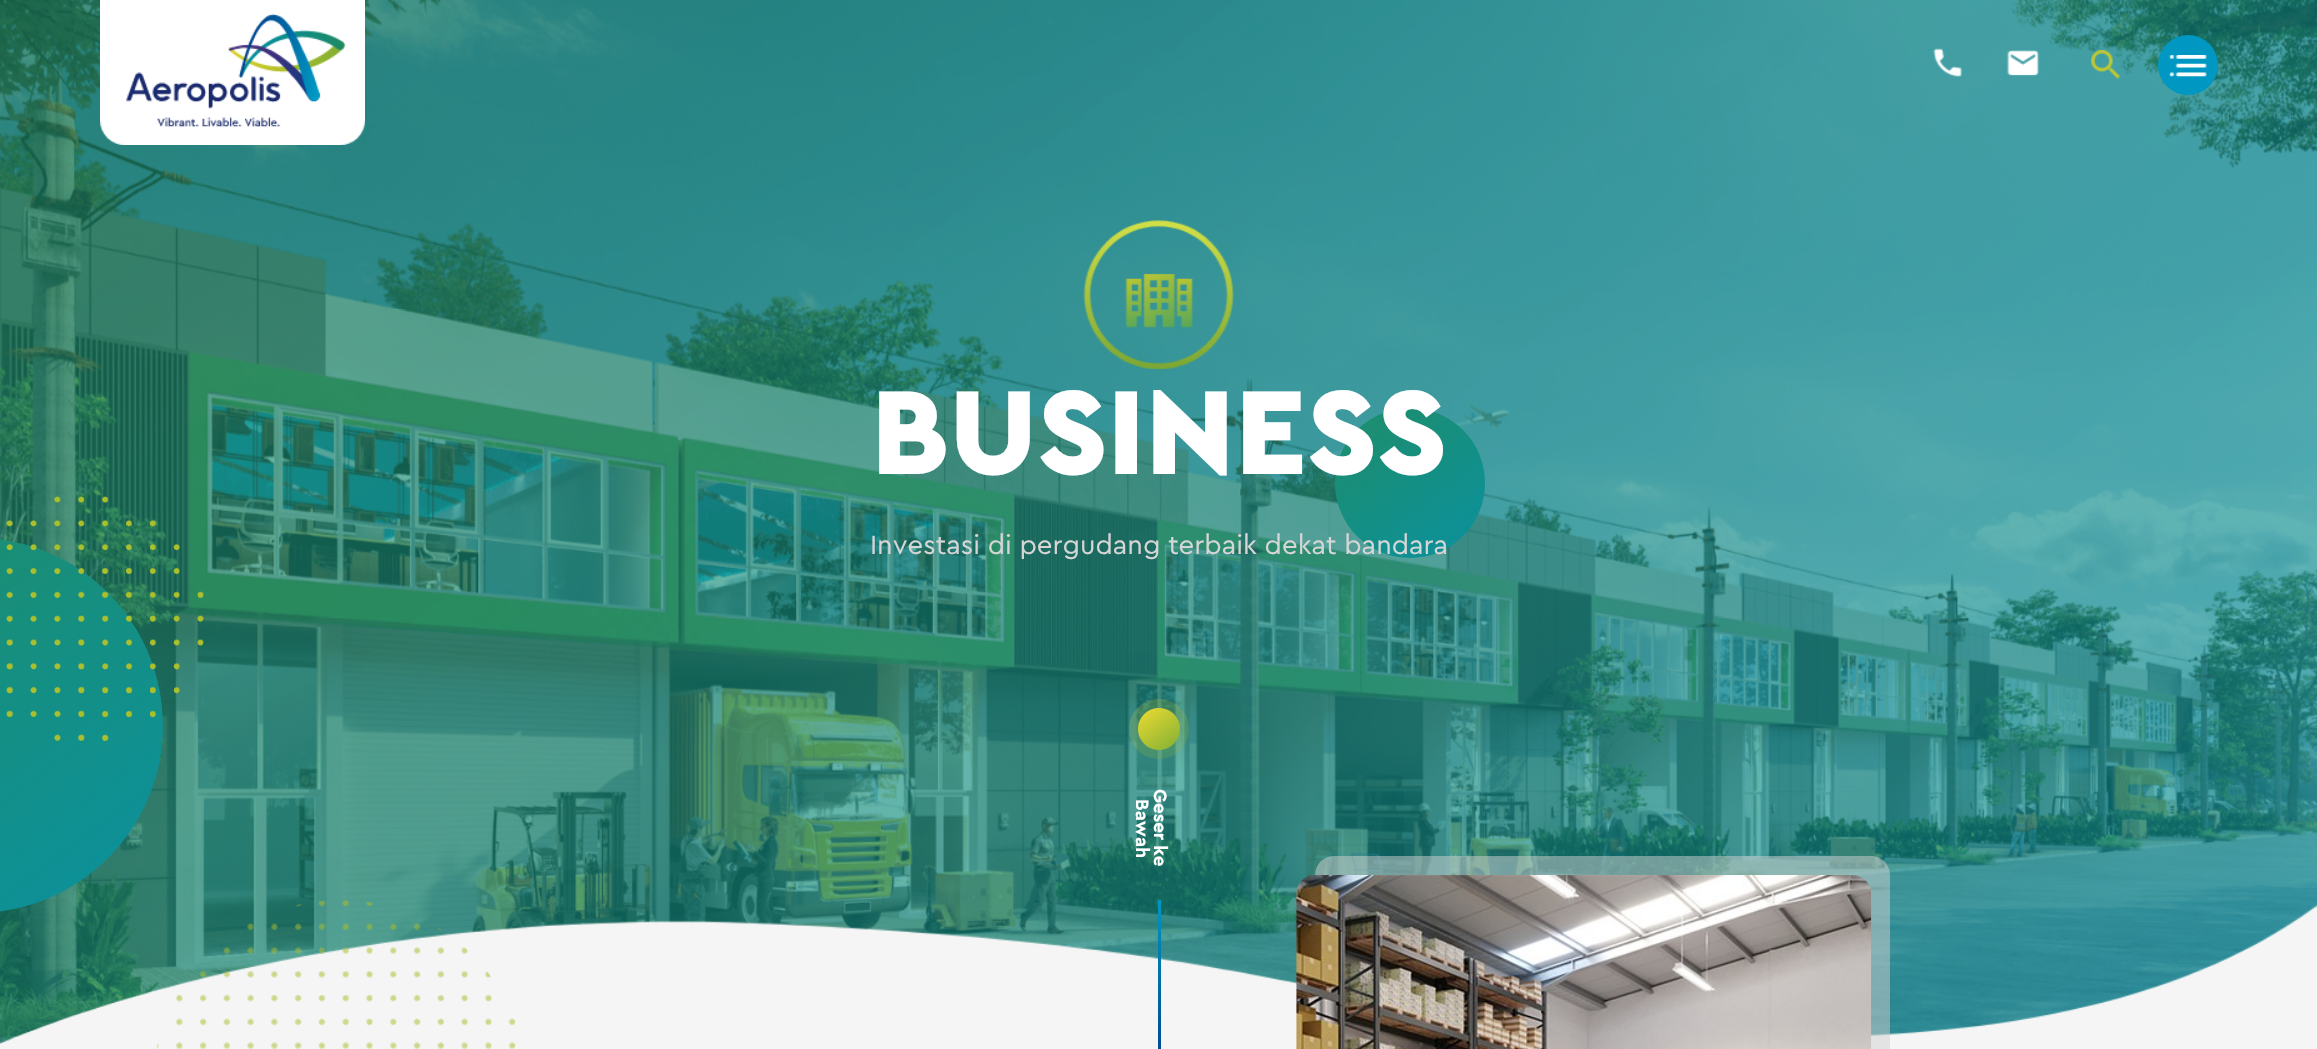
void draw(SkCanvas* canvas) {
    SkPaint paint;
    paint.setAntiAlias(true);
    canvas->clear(0xFFFFFFFF);
    canvas->drawImageRect(SkImages::DeferredFromEncodedData(SkData::MakeFromFileName("img6.png")), SkRect::MakeXYWH(0, 0, 2317, 1045), SkSamplingOptions());
    canvas->drawImageRect(SkImages::DeferredFromEncodedData(SkData::MakeFromFileName("img1.png")), SkRect::MakeXYWH(100, 0, 265, 145), SkSamplingOptions());
    canvas->drawImageRect(SkImages::DeferredFromEncodedData(SkData::MakeFromFileName("img2.png")), SkRect::MakeXYWH(1933, 48, 29, 29), SkSamplingOptions());
    canvas->drawImageRect(SkImages::DeferredFromEncodedData(SkData::MakeFromFileName("img3.png")), SkRect::MakeXYWH(2006, 50, 34, 26), SkSamplingOptions());
    canvas->drawImageRect(SkImages::DeferredFromEncodedData(SkData::MakeFromFileName("img4.png")), SkRect::MakeXYWH(2091, 50, 29, 29), SkSamplingOptions());
    paint.setColor(0xFF0097C2);
    canvas->drawCircle(2188, 65, 30, paint);
    canvas->drawImageRect(SkImages::DeferredFromEncodedData(SkData::MakeFromFileName("img5.png")), SkRect::MakeXYWH(2169, 55, 38, 22), SkSamplingOptions());
    canvas->drawImageRect(SkImages::DeferredFromEncodedData(SkData::MakeFromFileName("img7.png")), SkRect::MakeXYWH(1083, 220, 151, 150), SkSamplingOptions());
    {
        const SkColor colors[] = {0xFF0A919E, 0xFF1F8D69};
        const float stops[] = {0, 0.99f};
        const SkPoint ends[] = {{1473, 566}, {1347, 399}};
        paint.setShader(SkGradientShader::MakeLinear(ends, colors, stops, 2, SkTileMode::kClamp));
        paint.setAlpha(255);
    }
    canvas->drawCircle(1410, 483, 75, paint);
    SkFont font1(fontMgr->matchFamilyStyle("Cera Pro", SkFontStyle(900, SkFontStyle::kNormal_Width, SkFontStyle::kUpright_Slant)), 125);
    font1.setSubpixel(true);
    paint.setShader(nullptr);
    paint.setColor(0xFFFFFFFF);
    canvas->drawString("BUSINESS", 871, 474, font1, paint);
    SkFont font2(fontMgr->matchFamilyStyle("Cera Pro", SkFontStyle::Normal()), 27.5f);
    font2.setSubpixel(true);
    paint.setColor(0xFFD6D6D6);
    canvas->drawString("Investasi di pergudang terbaik dekat bandara", 870, 554, font2, paint);
    canvas->drawImageRect(SkImages::DeferredFromEncodedData(SkData::MakeFromFileName("img8.png")), SkRect::MakeXYWH(0, 904, 2317, 145), SkSamplingOptions());
    {
        const SkColor colors[] = {0xFF0A919E, 0xFF1F8D69};
        const float stops[] = {0, 0.99f};
        const SkPoint ends[] = {{133, 935}, {-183, 515}};
        paint.setShader(SkGradientShader::MakeLinear(ends, colors, stops, 2, SkTileMode::kClamp));
        paint.setAlpha(255);
    }
    canvas->drawPath(SkPathBuilder().moveTo(0, 538).lineTo(-24.5f, 538).cubicTo(79, 538, 163, 622, 163, 725.5f).cubicTo(163, 829, 79, 913, -24.5f, 913).lineTo(0, 913).close().detach(), paint);
    canvas->drawImageRect(SkImages::DeferredFromEncodedData(SkData::MakeFromFileName("img9.png")), SkRect::MakeXYWH(6, 496, 198, 245), SkSamplingOptions());
    SkFont font3(fontMgr->matchFamilyStyle("Cera Pro", SkFontStyle::Bold()), 18.75f);
    font3.setSubpixel(true);
    paint.setShader(nullptr);
    paint.setColor(0xFFFFFFFF);
    canvas->save();
    canvas->rotate(90, 1136, 799);
    canvas->drawString("Bawah", 1136, 799, font3, paint);
    canvas->restore();
    canvas->save();
    canvas->rotate(90, 1154, 789);
    canvas->drawString("Geser ke", 1154, 789, font3, paint);
    canvas->restore();
    {
        const SkColor colors[] = {0xFF004B93, 0xFF0097C1};
        const float stops[] = {0, 0.99f};
        const SkPoint ends[] = {{1195, 1023}, {1122, 927}};
        paint.setShader(SkGradientShader::MakeLinear(ends, colors, stops, 2, SkTileMode::kClamp));
        paint.setAlpha(255);
    }
    canvas->drawRect(SkRect::MakeXYWH(1158, 900, 3, 149), paint);
    canvas->drawImageRect(SkImages::DeferredFromEncodedData(SkData::MakeFromFileName("img10.png")), SkRect::MakeXYWH(156, 900, 360, 149), SkSamplingOptions());
    paint.setShader(nullptr);
    paint.setColor(0x80D1D1D1);
    canvas->drawRoundRect(SkRect::MakeXYWH(1315, 856, 575, 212), 19, 19, paint);
    canvas->drawImageRect(SkImages::DeferredFromEncodedData(SkData::MakeFromFileName("img11.png")), SkRect::MakeXYWH(1296, 875, 576, 174), SkSamplingOptions());
}
